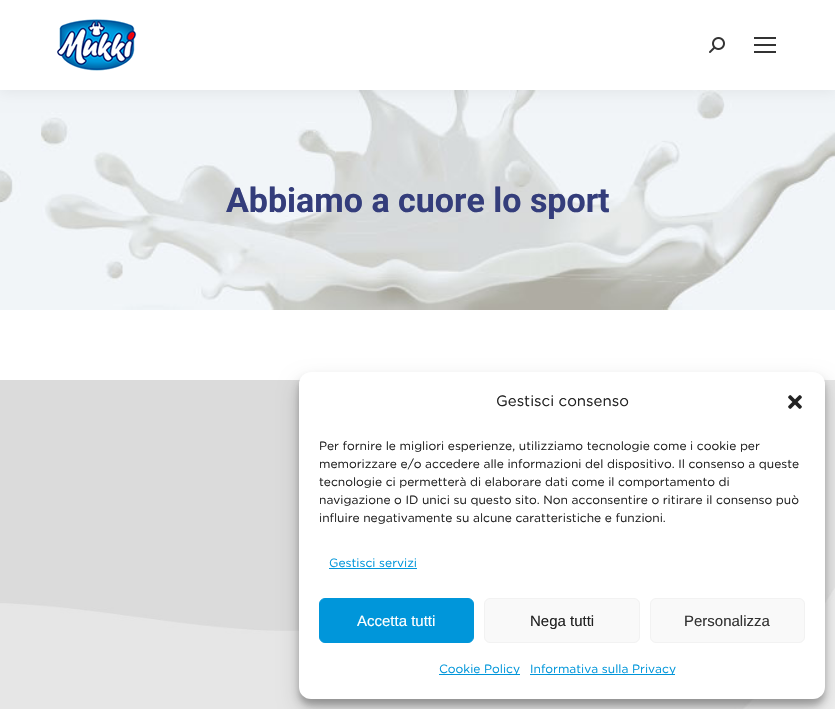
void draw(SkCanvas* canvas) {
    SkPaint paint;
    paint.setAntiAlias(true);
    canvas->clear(0xFFFFFFFF);
    canvas->drawImageRect(SkImages::DeferredFromEncodedData(SkData::MakeFromFileName("img3.png")), SkRect::MakeXYWH(0, 90, 835, 220), SkSamplingOptions());
    paint.setColor(0x12000000);
    paint.setMaskFilter(SkMaskFilter::MakeBlur(kNormal_SkBlurStyle, 7.5f));
    canvas->drawRect(SkRect::MakeXYWH(-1, -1, 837, 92), paint);
    paint.setMaskFilter(nullptr);
    paint.setColor(0xFFFFFFFF);
    canvas->drawRect(SkRect::MakeXYWH(0, 0, 835, 90), paint);
    canvas->drawImageRect(SkImages::DeferredFromEncodedData(SkData::MakeFromFileName("img1.png")), SkRect::MakeXYWH(57, 19, 80, 52), SkSamplingOptions());
    canvas->drawImageRect(SkImages::DeferredFromEncodedData(SkData::MakeFromFileName("img2.png")), SkRect::MakeXYWH(709, 37, 16, 16), SkSamplingOptions());
    paint.setColor(0xFF333333);
    canvas->drawRect(SkRect::MakeXYWH(754, 37, 22, 2), paint);
    canvas->drawRect(SkRect::MakeXYWH(754, 44, 22, 2), paint);
    canvas->drawRect(SkRect::MakeXYWH(754, 51, 22, 2), paint);
    SkFont font1(fontMgr->matchFamilyStyle("Roboto", SkFontStyle::Bold()), 34);
    font1.setSubpixel(true);
    paint.setColor(0xFF343D7B);
    canvas->drawString("Abbiamo a cuore lo sport", 226, 212, font1, paint);
    canvas->drawImageRect(SkImages::DeferredFromEncodedData(SkData::MakeFromFileName("img4.png")), SkRect::MakeXYWH(0, 380, 835, 329), SkSamplingOptions());
    paint.setColor(0x3B000000);
    paint.setMaskFilter(SkMaskFilter::MakeBlur(kNormal_SkBlurStyle, 3));
    canvas->drawRoundRect(SkRect::MakeXYWH(299, 378, 526, 327), 12, 12, paint);
    paint.setMaskFilter(nullptr);
    paint.setColor(0x30000000);
    paint.setMaskFilter(SkMaskFilter::MakeBlur(kNormal_SkBlurStyle, 10));
    canvas->drawRoundRect(SkRect::MakeXYWH(299, 382, 526, 327), 12, 12, paint);
    paint.setMaskFilter(nullptr);
    paint.setColor(0xFFFFFFFF);
    canvas->drawRoundRect(SkRect::MakeXYWH(299, 372, 526, 327), 12, 12, paint);
    SkFont font2(fontMgr->matchFamilyStyle("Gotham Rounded", SkFontStyle::Normal()), 15);
    font2.setSubpixel(true);
    paint.setColor(0xFF222222);
    canvas->drawString("Gestisci consenso", 496, 406, font2, paint);
    canvas->drawImageRect(SkImages::DeferredFromEncodedData(SkData::MakeFromFileName("img5.png")), SkRect::MakeXYWH(788, 395, 14, 14), SkSamplingOptions());
    SkFont font3(fontMgr->matchFamilyStyle("Gotham Rounded", SkFontStyle::Normal()), 12);
    font3.setSubpixel(true);
    canvas->drawString("Per fornire le migliori esperienze, utilizziamo tecnologie come i cookie per", 319, 450, font3, paint);
    canvas->drawString("memorizzare e/o accedere alle informazioni del dispositivo. Il consenso a queste", 319, 468, font3, paint);
    canvas->drawString("tecnologie ci permetterà di elaborare dati come il comportamento di", 319, 486, font3, paint);
    canvas->drawString("navigazione o ID unici su questo sito. Non acconsentire o ritirare il consenso può", 319, 504, font3, paint);
    canvas->drawString("influire negativamente su alcune caratteristiche e funzioni.", 319, 522, font3, paint);
    paint.setColor(0xFF0096DA);
    canvas->drawString("Gestisci servizi", 329, 567, font3, paint);
    canvas->drawRect(SkRect::MakeXYWH(329, 568, 88, 1), paint);
    canvas->drawRoundRect(SkRect::MakeXYWH(319.5f, 598.5f, 154, 44), 5.5f, 5.5f, paint);
    paint.setStyle(SkPaint::kStroke_Style);
    paint.setStrokeWidth(1);
    canvas->drawRoundRect(SkRect::MakeXYWH(319.5f, 598.5f, 154, 44), 5.5f, 5.5f, paint);
    SkFont font4(fontMgr->matchFamilyStyle("Liberation Sans", SkFontStyle::Normal()), 15);
    font4.setSubpixel(true);
    paint.setStyle(SkPaint::kFill_Style);
    paint.setColor(0xFFFFFFFF);
    canvas->drawString("Accetta tutti", 357, 626, font4, paint);
    paint.setColor(0xFFF9F9F9);
    canvas->drawRoundRect(SkRect::MakeXYWH(484.5f, 598.5f, 155, 44), 5.5f, 5.5f, paint);
    paint.setStyle(SkPaint::kStroke_Style);
    paint.setColor(0xFFF2F2F2);
    canvas->drawRoundRect(SkRect::MakeXYWH(484.5f, 598.5f, 155, 44), 5.5f, 5.5f, paint);
    paint.setStyle(SkPaint::kFill_Style);
    paint.setColor(0xFF222222);
    canvas->drawString("Nega tutti", 530, 626, font4, paint);
    paint.setColor(0xFFF9F9F9);
    canvas->drawRoundRect(SkRect::MakeXYWH(650.5f, 598.5f, 154, 44), 5.5f, 5.5f, paint);
    paint.setStyle(SkPaint::kStroke_Style);
    paint.setColor(0xFFF2F2F2);
    canvas->drawRoundRect(SkRect::MakeXYWH(650.5f, 598.5f, 154, 44), 5.5f, 5.5f, paint);
    paint.setStyle(SkPaint::kFill_Style);
    paint.setColor(0xFF333333);
    canvas->drawString("Personalizza", 684, 626, font4, paint);
    paint.setColor(0xFF0096DA);
    canvas->drawRect(SkRect::MakeXYWH(439, 674, 81, 1), paint);
    canvas->drawString("Cookie Policy", 439, 673, font3, paint);
    canvas->drawRect(SkRect::MakeXYWH(530, 674, 145, 1), paint);
    canvas->drawString("Informativa sulla Privacy", 530, 673, font3, paint);
}
